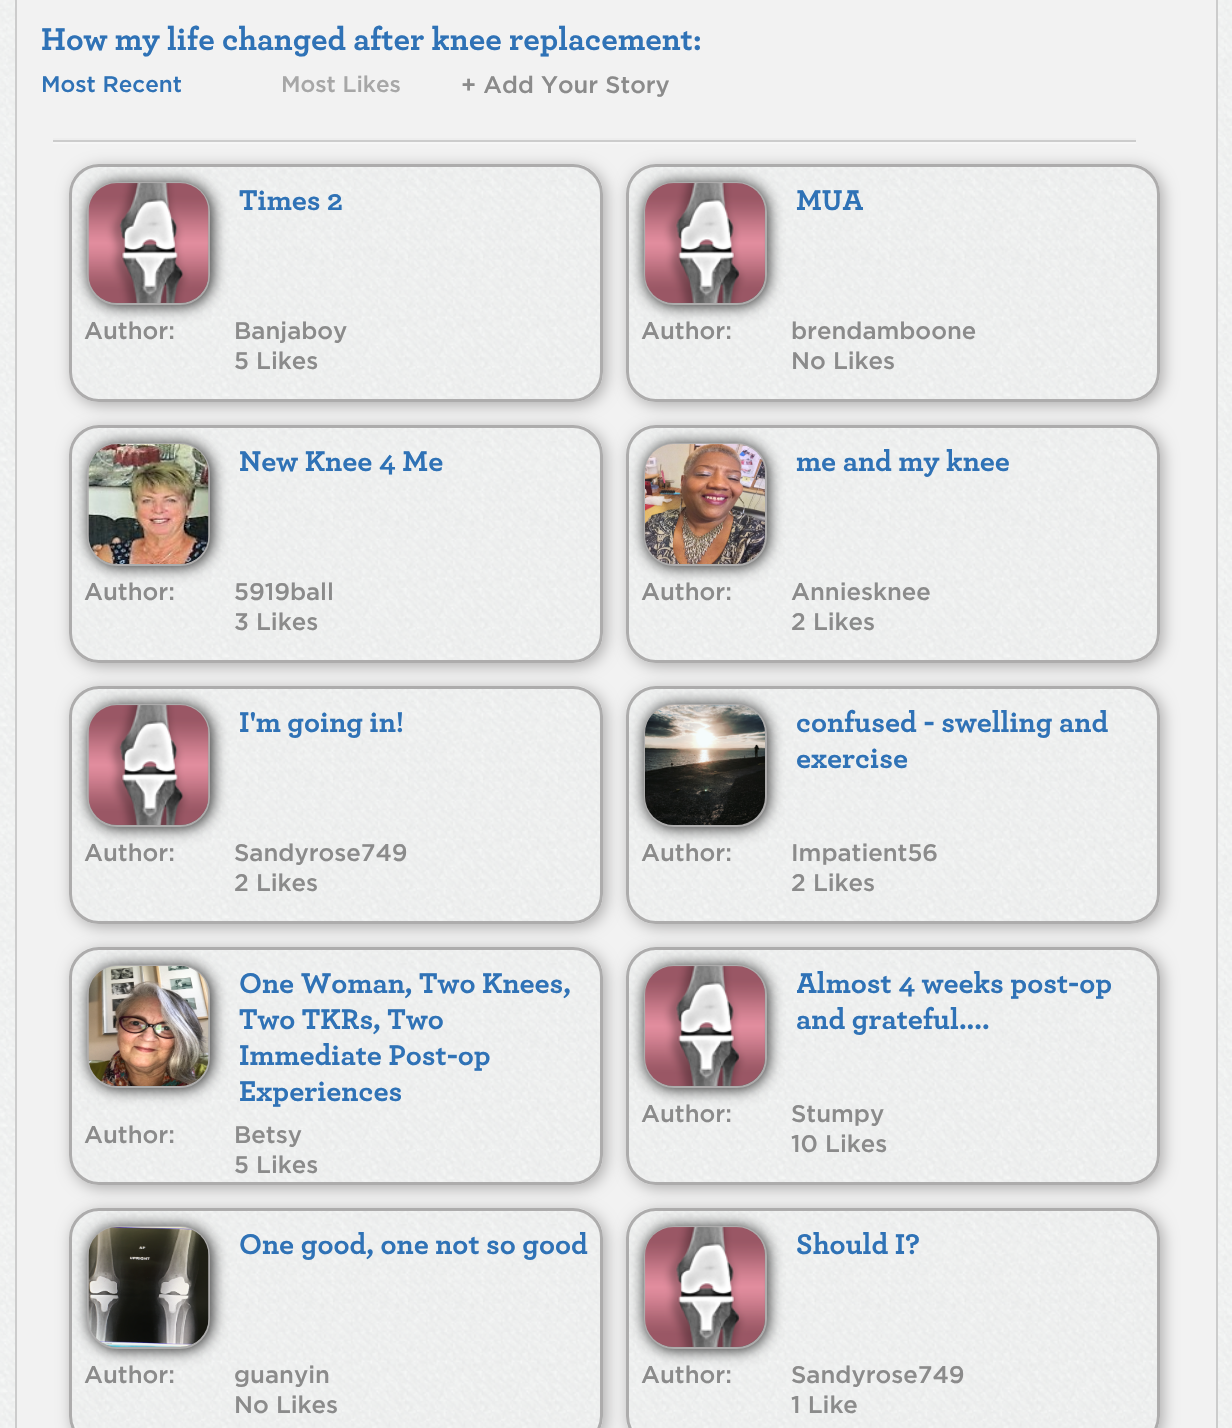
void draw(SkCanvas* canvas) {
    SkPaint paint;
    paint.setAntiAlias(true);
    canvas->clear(0xFFFFFFFF);
    canvas->drawImageRect(SkImages::DeferredFromEncodedData(SkData::MakeFromFileName("img1.png")), SkRect::MakeXYWH(0, 0, 1232, 1428), SkSamplingOptions());
    paint.setColor(0xFFF2F2F2);
    canvas->drawRect(SkRect::MakeXYWH(16, -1, 1201, 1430), paint);
    paint.setStyle(SkPaint::kStroke_Style);
    paint.setStrokeWidth(2);
    paint.setColor(0xFFCCCCCC);
    canvas->drawRect(SkRect::MakeXYWH(16, -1, 1201, 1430), paint);
    SkFont font1(fontMgr->matchFamilyStyle("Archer", SkFontStyle::Bold()), 33);
    font1.setSubpixel(true);
    paint.setStyle(SkPaint::kFill_Style);
    paint.setColor(0xFF2F72B6);
    canvas->drawString("How my life changed after knee replacement:", 41, 50, font1, paint);
    SkFont font2(fontMgr->matchFamilyStyle("Gotham", SkFontStyle(500, SkFontStyle::kNormal_Width, SkFontStyle::kUpright_Slant)), 22.5f);
    font2.setSubpixel(true);
    canvas->drawString("Most Recent", 41, 92, font2, paint);
    paint.setColor(0xFFA7A7A7);
    canvas->drawString("Most Likes", 281, 92, font2, paint);
    SkFont font3(fontMgr->matchFamilyStyle("Gotham", SkFontStyle(500, SkFontStyle::kNormal_Width, SkFontStyle::kUpright_Slant)), 23.75f);
    font3.setSubpixel(true);
    paint.setColor(0xFF8B8B8B);
    canvas->drawString("+ Add Your Story", 461, 93, font3, paint);
    canvas->save();
    canvas->clipPath(SkPathBuilder(SkPathFillType::kEvenOdd).moveTo(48, 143).lineTo(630, 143).lineTo(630, 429).lineTo(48, 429).close().moveTo(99, 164).lineTo(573, 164).cubicTo(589.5f, 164, 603, 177.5f, 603, 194).lineTo(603, 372).cubicTo(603, 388.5f, 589.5f, 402, 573, 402).lineTo(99, 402).cubicTo(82.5f, 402, 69, 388.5f, 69, 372).lineTo(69, 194).cubicTo(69, 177.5f, 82.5f, 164, 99, 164).close().detach(), true);
    paint.setColor(0xFFADACAC);
    paint.setMaskFilter(SkMaskFilter::MakeBlur(kNormal_SkBlurStyle, 7.5f));
    canvas->drawRoundRect(SkRect::MakeXYWH(72, 167, 534, 238), 30, 30, paint);
    paint.setMaskFilter(nullptr);
    canvas->restore();
    canvas->save();
    canvas->clipPath(SkPathBuilder(SkPathFillType::kEvenOdd).moveTo(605, 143).lineTo(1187, 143).lineTo(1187, 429).lineTo(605, 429).close().moveTo(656, 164).lineTo(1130, 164).cubicTo(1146.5f, 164, 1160, 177.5f, 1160, 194).lineTo(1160, 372).cubicTo(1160, 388.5f, 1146.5f, 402, 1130, 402).lineTo(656, 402).cubicTo(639.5f, 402, 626, 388.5f, 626, 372).lineTo(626, 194).cubicTo(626, 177.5f, 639.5f, 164, 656, 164).close().detach(), true);
    paint.setMaskFilter(SkMaskFilter::MakeBlur(kNormal_SkBlurStyle, 7.5f));
    canvas->drawRoundRect(SkRect::MakeXYWH(629, 167, 534, 238), 30, 30, paint);
    paint.setMaskFilter(nullptr);
    canvas->restore();
    paint.setColor(0xFFF6F6F6);
    canvas->drawRect(SkRect::MakeXYWH(53, 142, 1083, 2), paint);
    paint.setColor(0xFFEEEEEE);
    canvas->drawRect(SkRect::MakeXYWH(53, 138, 1083, 2), paint);
    paint.setColor(0xFFCCCCCC);
    canvas->drawRect(SkRect::MakeXYWH(53, 140, 1083, 2), paint);
    canvas->drawImageRect(SkImages::DeferredFromEncodedData(SkData::MakeFromFileName("img2.png")), SkRect::MakeXYWH(69, 164, 534, 238), SkSamplingOptions());
    paint.setStyle(SkPaint::kStroke_Style);
    paint.setStrokeWidth(3);
    paint.setColor(0xFFADACAC);
    canvas->drawRoundRect(SkRect::MakeXYWH(70.5f, 165.5f, 531, 235), 28.5f, 28.5f, paint);
    paint.setStyle(SkPaint::kFill_Style);
    paint.setColor(0xFF272727);
    paint.setMaskFilter(SkMaskFilter::MakeBlur(kNormal_SkBlurStyle, 7.5f));
    canvas->drawRoundRect(SkRect::MakeXYWH(89, 183, 123, 123), 30, 30, paint);
    paint.setMaskFilter(nullptr);
    paint.setStyle(SkPaint::kStroke_Style);
    paint.setStrokeWidth(2);
    paint.setColor(0xFFADACAC);
    canvas->drawRoundRect(SkRect::MakeXYWH(88, 183, 121, 121), 29, 29, paint);
    canvas->drawImageRect(SkImages::DeferredFromEncodedData(SkData::MakeFromFileName("img3.png")), SkRect::MakeXYWH(88, 183, 121, 120), SkSamplingOptions());
    SkFont font4(fontMgr->matchFamilyStyle("Archer", SkFontStyle::Bold()), 30);
    font4.setSubpixel(true);
    paint.setStyle(SkPaint::kFill_Style);
    paint.setColor(0xFF2F72B6);
    canvas->drawString("Times 2", 239, 210, font4, paint);
    SkFont font5(fontMgr->matchFamilyStyle("Gotham", SkFontStyle(500, SkFontStyle::kNormal_Width, SkFontStyle::kUpright_Slant)), 24);
    font5.setSubpixel(true);
    paint.setColor(0xFF8B8B8B);
    canvas->drawString("Author:", 84, 339, font5, paint);
    canvas->drawString("Banjaboy", 234, 339, font5, paint);
    canvas->drawString("5 Likes", 234, 369, font5, paint);
    canvas->drawImageRect(SkImages::DeferredFromEncodedData(SkData::MakeFromFileName("img4.png")), SkRect::MakeXYWH(626, 164, 534, 238), SkSamplingOptions());
    paint.setStyle(SkPaint::kStroke_Style);
    paint.setStrokeWidth(3);
    paint.setColor(0xFFADACAC);
    canvas->drawRoundRect(SkRect::MakeXYWH(627.5f, 165.5f, 531, 235), 28.5f, 28.5f, paint);
    paint.setStyle(SkPaint::kFill_Style);
    paint.setColor(0xFF272727);
    paint.setMaskFilter(SkMaskFilter::MakeBlur(kNormal_SkBlurStyle, 7.5f));
    canvas->drawRoundRect(SkRect::MakeXYWH(645, 183, 123, 123), 30, 30, paint);
    paint.setMaskFilter(nullptr);
    paint.setStyle(SkPaint::kStroke_Style);
    paint.setStrokeWidth(2);
    paint.setColor(0xFFADACAC);
    canvas->drawRoundRect(SkRect::MakeXYWH(645, 183, 121, 121), 29, 29, paint);
    canvas->drawImageRect(SkImages::DeferredFromEncodedData(SkData::MakeFromFileName("img5.png")), SkRect::MakeXYWH(645, 183, 120, 120), SkSamplingOptions());
    paint.setStyle(SkPaint::kFill_Style);
    paint.setColor(0xFF2F72B6);
    canvas->drawString("MUA", 796, 210, font4, paint);
    paint.setColor(0xFF8B8B8B);
    canvas->drawString("Author:", 641, 339, font5, paint);
    canvas->drawString("brendamboone", 791, 339, font5, paint);
    canvas->drawString("No Likes", 791, 369, font5, paint);
    canvas->save();
    canvas->clipPath(SkPathBuilder(SkPathFillType::kEvenOdd).moveTo(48, 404).lineTo(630, 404).lineTo(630, 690).lineTo(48, 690).close().moveTo(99, 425).lineTo(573, 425).cubicTo(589.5f, 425, 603, 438.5f, 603, 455).lineTo(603, 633).cubicTo(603, 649.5f, 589.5f, 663, 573, 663).lineTo(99, 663).cubicTo(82.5f, 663, 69, 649.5f, 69, 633).lineTo(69, 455).cubicTo(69, 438.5f, 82.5f, 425, 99, 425).close().detach(), true);
    paint.setColor(0xFFADACAC);
    paint.setMaskFilter(SkMaskFilter::MakeBlur(kNormal_SkBlurStyle, 7.5f));
    canvas->drawRoundRect(SkRect::MakeXYWH(72, 428, 534, 238), 30, 30, paint);
    paint.setMaskFilter(nullptr);
    canvas->restore();
    canvas->drawImageRect(SkImages::DeferredFromEncodedData(SkData::MakeFromFileName("img6.png")), SkRect::MakeXYWH(69, 425, 534, 238), SkSamplingOptions());
    paint.setStyle(SkPaint::kStroke_Style);
    paint.setStrokeWidth(3);
    canvas->drawRoundRect(SkRect::MakeXYWH(70.5f, 426.5f, 531, 235), 28.5f, 28.5f, paint);
    paint.setStyle(SkPaint::kFill_Style);
    paint.setColor(0xFF272727);
    paint.setMaskFilter(SkMaskFilter::MakeBlur(kNormal_SkBlurStyle, 7.5f));
    canvas->drawRoundRect(SkRect::MakeXYWH(89, 444, 123, 123), 30, 30, paint);
    paint.setMaskFilter(nullptr);
    paint.setStyle(SkPaint::kStroke_Style);
    paint.setStrokeWidth(2);
    paint.setColor(0xFFADACAC);
    canvas->drawRoundRect(SkRect::MakeXYWH(88, 444, 121, 121), 29, 29, paint);
    canvas->drawImageRect(SkImages::DeferredFromEncodedData(SkData::MakeFromFileName("img7.png")), SkRect::MakeXYWH(88, 444, 121, 120), SkSamplingOptions());
    paint.setStyle(SkPaint::kFill_Style);
    paint.setColor(0xFF2F72B6);
    canvas->drawString("New Knee 4 Me", 239, 471, font4, paint);
    paint.setColor(0xFF8B8B8B);
    canvas->drawString("Author:", 84, 600, font5, paint);
    canvas->drawString("5919ball", 234, 600, font5, paint);
    canvas->drawString("3 Likes", 234, 630, font5, paint);
    canvas->save();
    canvas->clipPath(SkPathBuilder(SkPathFillType::kEvenOdd).moveTo(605, 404).lineTo(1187, 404).lineTo(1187, 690).lineTo(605, 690).close().moveTo(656, 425).lineTo(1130, 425).cubicTo(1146.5f, 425, 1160, 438.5f, 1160, 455).lineTo(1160, 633).cubicTo(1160, 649.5f, 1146.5f, 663, 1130, 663).lineTo(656, 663).cubicTo(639.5f, 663, 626, 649.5f, 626, 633).lineTo(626, 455).cubicTo(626, 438.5f, 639.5f, 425, 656, 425).close().detach(), true);
    paint.setColor(0xFFADACAC);
    paint.setMaskFilter(SkMaskFilter::MakeBlur(kNormal_SkBlurStyle, 7.5f));
    canvas->drawRoundRect(SkRect::MakeXYWH(629, 428, 534, 238), 30, 30, paint);
    paint.setMaskFilter(nullptr);
    canvas->restore();
    canvas->drawImageRect(SkImages::DeferredFromEncodedData(SkData::MakeFromFileName("img8.png")), SkRect::MakeXYWH(626, 425, 534, 238), SkSamplingOptions());
    paint.setStyle(SkPaint::kStroke_Style);
    paint.setStrokeWidth(3);
    canvas->drawRoundRect(SkRect::MakeXYWH(627.5f, 426.5f, 531, 235), 28.5f, 28.5f, paint);
    paint.setStyle(SkPaint::kFill_Style);
    paint.setColor(0xFF272727);
    paint.setMaskFilter(SkMaskFilter::MakeBlur(kNormal_SkBlurStyle, 7.5f));
    canvas->drawRoundRect(SkRect::MakeXYWH(645, 444, 123, 123), 30, 30, paint);
    paint.setMaskFilter(nullptr);
    paint.setStyle(SkPaint::kStroke_Style);
    paint.setStrokeWidth(2);
    paint.setColor(0xFFADACAC);
    canvas->drawRoundRect(SkRect::MakeXYWH(645, 444, 121, 121), 29, 29, paint);
    canvas->drawImageRect(SkImages::DeferredFromEncodedData(SkData::MakeFromFileName("img9.png")), SkRect::MakeXYWH(645, 444, 120, 120), SkSamplingOptions());
    paint.setStyle(SkPaint::kFill_Style);
    paint.setColor(0xFF2F72B6);
    canvas->drawString("me and my knee", 796, 471, font4, paint);
    paint.setColor(0xFF8B8B8B);
    canvas->drawString("Author:", 641, 600, font5, paint);
    canvas->drawString("Anniesknee", 791, 600, font5, paint);
    canvas->drawString("2 Likes", 791, 630, font5, paint);
    canvas->save();
    canvas->clipPath(SkPathBuilder(SkPathFillType::kEvenOdd).moveTo(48, 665).lineTo(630, 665).lineTo(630, 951).lineTo(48, 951).close().moveTo(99, 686).lineTo(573, 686).cubicTo(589.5f, 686, 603, 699.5f, 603, 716).lineTo(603, 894).cubicTo(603, 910.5f, 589.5f, 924, 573, 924).lineTo(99, 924).cubicTo(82.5f, 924, 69, 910.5f, 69, 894).lineTo(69, 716).cubicTo(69, 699.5f, 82.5f, 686, 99, 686).close().detach(), true);
    paint.setColor(0xFFADACAC);
    paint.setMaskFilter(SkMaskFilter::MakeBlur(kNormal_SkBlurStyle, 7.5f));
    canvas->drawRoundRect(SkRect::MakeXYWH(72, 689, 534, 238), 30, 30, paint);
    paint.setMaskFilter(nullptr);
    canvas->restore();
    canvas->drawImageRect(SkImages::DeferredFromEncodedData(SkData::MakeFromFileName("img6.png")), SkRect::MakeXYWH(69, 686, 534, 238), SkSamplingOptions());
    paint.setStyle(SkPaint::kStroke_Style);
    paint.setStrokeWidth(3);
    canvas->drawRoundRect(SkRect::MakeXYWH(70.5f, 687.5f, 531, 235), 28.5f, 28.5f, paint);
    paint.setStyle(SkPaint::kFill_Style);
    paint.setColor(0xFF272727);
    paint.setMaskFilter(SkMaskFilter::MakeBlur(kNormal_SkBlurStyle, 7.5f));
    canvas->drawRoundRect(SkRect::MakeXYWH(89, 705, 123, 123), 30, 30, paint);
    paint.setMaskFilter(nullptr);
    paint.setStyle(SkPaint::kStroke_Style);
    paint.setStrokeWidth(2);
    paint.setColor(0xFFADACAC);
    canvas->drawRoundRect(SkRect::MakeXYWH(88, 705, 121, 121), 29, 29, paint);
    canvas->drawImageRect(SkImages::DeferredFromEncodedData(SkData::MakeFromFileName("img10.png")), SkRect::MakeXYWH(88, 705, 121, 120), SkSamplingOptions());
    paint.setStyle(SkPaint::kFill_Style);
    paint.setColor(0xFF2F72B6);
    canvas->drawString("I'm going in!", 239, 732, font4, paint);
    paint.setColor(0xFF8B8B8B);
    canvas->drawString("Author:", 84, 861, font5, paint);
    canvas->drawString("Sandyrose749", 234, 861, font5, paint);
    canvas->drawString("2 Likes", 234, 891, font5, paint);
    canvas->save();
    canvas->clipPath(SkPathBuilder(SkPathFillType::kEvenOdd).moveTo(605, 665).lineTo(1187, 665).lineTo(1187, 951).lineTo(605, 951).close().moveTo(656, 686).lineTo(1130, 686).cubicTo(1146.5f, 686, 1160, 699.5f, 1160, 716).lineTo(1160, 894).cubicTo(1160, 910.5f, 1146.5f, 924, 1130, 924).lineTo(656, 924).cubicTo(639.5f, 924, 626, 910.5f, 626, 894).lineTo(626, 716).cubicTo(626, 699.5f, 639.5f, 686, 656, 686).close().detach(), true);
    paint.setColor(0xFFADACAC);
    paint.setMaskFilter(SkMaskFilter::MakeBlur(kNormal_SkBlurStyle, 7.5f));
    canvas->drawRoundRect(SkRect::MakeXYWH(629, 689, 534, 238), 30, 30, paint);
    paint.setMaskFilter(nullptr);
    canvas->restore();
    canvas->drawImageRect(SkImages::DeferredFromEncodedData(SkData::MakeFromFileName("img8.png")), SkRect::MakeXYWH(626, 686, 534, 238), SkSamplingOptions());
    paint.setStyle(SkPaint::kStroke_Style);
    paint.setStrokeWidth(3);
    canvas->drawRoundRect(SkRect::MakeXYWH(627.5f, 687.5f, 531, 235), 28.5f, 28.5f, paint);
    paint.setStyle(SkPaint::kFill_Style);
    paint.setColor(0xFF272727);
    paint.setMaskFilter(SkMaskFilter::MakeBlur(kNormal_SkBlurStyle, 7.5f));
    canvas->drawRoundRect(SkRect::MakeXYWH(645, 705, 123, 123), 30, 30, paint);
    paint.setMaskFilter(nullptr);
    paint.setStyle(SkPaint::kStroke_Style);
    paint.setStrokeWidth(2);
    paint.setColor(0xFFADACAC);
    canvas->drawRoundRect(SkRect::MakeXYWH(645, 705, 121, 121), 29, 29, paint);
    canvas->drawImageRect(SkImages::DeferredFromEncodedData(SkData::MakeFromFileName("img11.png")), SkRect::MakeXYWH(645, 705, 120, 120), SkSamplingOptions());
    paint.setStyle(SkPaint::kFill_Style);
    paint.setColor(0xFF2F72B6);
    canvas->drawString("confused - swelling and", 796, 732, font4, paint);
    canvas->drawString("exercise", 796, 768, font4, paint);
    paint.setColor(0xFF8B8B8B);
    canvas->drawString("Author:", 641, 861, font5, paint);
    canvas->drawString("Impatient56", 791, 861, font5, paint);
    canvas->drawString("2 Likes", 791, 891, font5, paint);
    canvas->save();
    canvas->clipPath(SkPathBuilder(SkPathFillType::kEvenOdd).moveTo(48, 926).lineTo(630, 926).lineTo(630, 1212).lineTo(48, 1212).close().moveTo(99, 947).lineTo(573, 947).cubicTo(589.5f, 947, 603, 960.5f, 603, 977).lineTo(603, 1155).cubicTo(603, 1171.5f, 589.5f, 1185, 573, 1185).lineTo(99, 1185).cubicTo(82.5f, 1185, 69, 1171.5f, 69, 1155).lineTo(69, 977).cubicTo(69, 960.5f, 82.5f, 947, 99, 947).close().detach(), true);
    paint.setColor(0xFFADACAC);
    paint.setMaskFilter(SkMaskFilter::MakeBlur(kNormal_SkBlurStyle, 7.5f));
    canvas->drawRoundRect(SkRect::MakeXYWH(72, 950, 534, 238), 30, 30, paint);
    paint.setMaskFilter(nullptr);
    canvas->restore();
    canvas->drawImageRect(SkImages::DeferredFromEncodedData(SkData::MakeFromFileName("img12.png")), SkRect::MakeXYWH(69, 947, 534, 238), SkSamplingOptions());
    paint.setStyle(SkPaint::kStroke_Style);
    paint.setStrokeWidth(3);
    canvas->drawRoundRect(SkRect::MakeXYWH(70.5f, 948.5f, 531, 235), 28.5f, 28.5f, paint);
    paint.setStyle(SkPaint::kFill_Style);
    paint.setColor(0xFF272727);
    paint.setMaskFilter(SkMaskFilter::MakeBlur(kNormal_SkBlurStyle, 7.5f));
    canvas->drawRoundRect(SkRect::MakeXYWH(89, 966, 123, 123), 30, 30, paint);
    paint.setMaskFilter(nullptr);
    paint.setStyle(SkPaint::kStroke_Style);
    paint.setStrokeWidth(2);
    paint.setColor(0xFFADACAC);
    canvas->drawRoundRect(SkRect::MakeXYWH(88, 966, 121, 121), 29, 29, paint);
    canvas->drawImageRect(SkImages::DeferredFromEncodedData(SkData::MakeFromFileName("img13.png")), SkRect::MakeXYWH(88, 966, 121, 120), SkSamplingOptions());
    paint.setStyle(SkPaint::kFill_Style);
    paint.setColor(0xFF2F72B6);
    canvas->drawString("One Woman, Two Knees,", 239, 993, font4, paint);
    canvas->drawString("Two TKRs, Two", 239, 1029, font4, paint);
    canvas->drawString("Immediate Post-op", 239, 1065, font4, paint);
    canvas->drawString("Experiences", 239, 1101, font4, paint);
    paint.setColor(0xFF8B8B8B);
    canvas->drawString("Author:", 84, 1143, font5, paint);
    canvas->drawString("Betsy", 234, 1143, font5, paint);
    canvas->drawString("5 Likes", 234, 1173, font5, paint);
    canvas->save();
    canvas->clipPath(SkPathBuilder(SkPathFillType::kEvenOdd).moveTo(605, 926).lineTo(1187, 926).lineTo(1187, 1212).lineTo(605, 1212).close().moveTo(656, 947).lineTo(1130, 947).cubicTo(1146.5f, 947, 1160, 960.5f, 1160, 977).lineTo(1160, 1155).cubicTo(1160, 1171.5f, 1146.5f, 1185, 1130, 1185).lineTo(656, 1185).cubicTo(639.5f, 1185, 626, 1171.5f, 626, 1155).lineTo(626, 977).cubicTo(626, 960.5f, 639.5f, 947, 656, 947).close().detach(), true);
    paint.setColor(0xFFADACAC);
    paint.setMaskFilter(SkMaskFilter::MakeBlur(kNormal_SkBlurStyle, 7.5f));
    canvas->drawRoundRect(SkRect::MakeXYWH(629, 950, 534, 238), 30, 30, paint);
    paint.setMaskFilter(nullptr);
    canvas->restore();
    canvas->drawImageRect(SkImages::DeferredFromEncodedData(SkData::MakeFromFileName("img14.png")), SkRect::MakeXYWH(626, 947, 534, 238), SkSamplingOptions());
    paint.setStyle(SkPaint::kStroke_Style);
    paint.setStrokeWidth(3);
    canvas->drawRoundRect(SkRect::MakeXYWH(627.5f, 948.5f, 531, 235), 28.5f, 28.5f, paint);
    paint.setStyle(SkPaint::kFill_Style);
    paint.setColor(0xFF272727);
    paint.setMaskFilter(SkMaskFilter::MakeBlur(kNormal_SkBlurStyle, 7.5f));
    canvas->drawRoundRect(SkRect::MakeXYWH(645, 966, 123, 123), 30, 30, paint);
    paint.setMaskFilter(nullptr);
    paint.setStyle(SkPaint::kStroke_Style);
    paint.setStrokeWidth(2);
    paint.setColor(0xFFADACAC);
    canvas->drawRoundRect(SkRect::MakeXYWH(645, 966, 121, 121), 29, 29, paint);
    canvas->drawImageRect(SkImages::DeferredFromEncodedData(SkData::MakeFromFileName("img15.png")), SkRect::MakeXYWH(645, 966, 120, 120), SkSamplingOptions());
    canvas->save();
    canvas->clipRect(SkRect::MakeXYWH(797, 965, 352, 72));
    paint.setStyle(SkPaint::kFill_Style);
    paint.setColor(0xFF2F72B6);
    canvas->drawString("Almost 4 weeks post-op", 796, 993, font4, paint);
    canvas->restore();
    canvas->drawString("and grateful....", 796, 1029, font4, paint);
    paint.setColor(0xFF8B8B8B);
    canvas->drawString("Author:", 641, 1122, font5, paint);
    canvas->drawString("Stumpy", 791, 1122, font5, paint);
    canvas->drawString("10 Likes", 791, 1152, font5, paint);
    canvas->save();
    canvas->clipPath(SkPathBuilder(SkPathFillType::kEvenOdd).moveTo(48, 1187).lineTo(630, 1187).lineTo(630, 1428).lineTo(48, 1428).close().moveTo(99, 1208).lineTo(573, 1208).cubicTo(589.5f, 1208, 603, 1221.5f, 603, 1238).lineTo(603, 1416).cubicTo(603, 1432.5f, 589.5f, 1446, 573, 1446).lineTo(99, 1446).cubicTo(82.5f, 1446, 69, 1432.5f, 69, 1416).lineTo(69, 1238).cubicTo(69, 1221.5f, 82.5f, 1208, 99, 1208).close().detach(), true);
    paint.setColor(0xFFADACAC);
    paint.setMaskFilter(SkMaskFilter::MakeBlur(kNormal_SkBlurStyle, 7.5f));
    canvas->drawRoundRect(SkRect::MakeXYWH(72, 1211, 534, 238), 30, 30, paint);
    paint.setMaskFilter(nullptr);
    canvas->restore();
    canvas->drawImageRect(SkImages::DeferredFromEncodedData(SkData::MakeFromFileName("img16.png")), SkRect::MakeXYWH(69, 1208, 534, 220), SkSamplingOptions());
    paint.setStyle(SkPaint::kStroke_Style);
    paint.setStrokeWidth(3);
    canvas->drawRoundRect(SkRect::MakeXYWH(70.5f, 1209.5f, 531, 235), 28.5f, 28.5f, paint);
    paint.setStyle(SkPaint::kFill_Style);
    paint.setColor(0xFF272727);
    paint.setMaskFilter(SkMaskFilter::MakeBlur(kNormal_SkBlurStyle, 7.5f));
    canvas->drawRoundRect(SkRect::MakeXYWH(89, 1227, 123, 123), 30, 30, paint);
    paint.setMaskFilter(nullptr);
    paint.setStyle(SkPaint::kStroke_Style);
    paint.setStrokeWidth(2);
    paint.setColor(0xFFADACAC);
    canvas->drawRoundRect(SkRect::MakeXYWH(88, 1227, 121, 121), 29, 29, paint);
    canvas->drawImageRect(SkImages::DeferredFromEncodedData(SkData::MakeFromFileName("img17.png")), SkRect::MakeXYWH(88, 1227, 121, 120), SkSamplingOptions());
    paint.setStyle(SkPaint::kFill_Style);
    paint.setColor(0xFF2F72B6);
    canvas->drawString("One good, one not so good", 239, 1254, font4, paint);
    paint.setColor(0xFF8B8B8B);
    canvas->drawString("Author:", 84, 1383, font5, paint);
    canvas->drawString("guanyin", 234, 1383, font5, paint);
    canvas->drawString("No Likes", 234, 1413, font5, paint);
    canvas->save();
    canvas->clipPath(SkPathBuilder(SkPathFillType::kEvenOdd).moveTo(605, 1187).lineTo(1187, 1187).lineTo(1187, 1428).lineTo(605, 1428).close().moveTo(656, 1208).lineTo(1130, 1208).cubicTo(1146.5f, 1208, 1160, 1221.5f, 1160, 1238).lineTo(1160, 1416).cubicTo(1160, 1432.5f, 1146.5f, 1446, 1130, 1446).lineTo(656, 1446).cubicTo(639.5f, 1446, 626, 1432.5f, 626, 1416).lineTo(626, 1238).cubicTo(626, 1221.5f, 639.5f, 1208, 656, 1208).close().detach(), true);
    paint.setColor(0xFFADACAC);
    paint.setMaskFilter(SkMaskFilter::MakeBlur(kNormal_SkBlurStyle, 7.5f));
    canvas->drawRoundRect(SkRect::MakeXYWH(629, 1211, 534, 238), 30, 30, paint);
    paint.setMaskFilter(nullptr);
    canvas->restore();
    canvas->drawImageRect(SkImages::DeferredFromEncodedData(SkData::MakeFromFileName("img18.png")), SkRect::MakeXYWH(626, 1208, 534, 220), SkSamplingOptions());
    paint.setStyle(SkPaint::kStroke_Style);
    paint.setStrokeWidth(3);
    canvas->drawRoundRect(SkRect::MakeXYWH(627.5f, 1209.5f, 531, 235), 28.5f, 28.5f, paint);
    paint.setStyle(SkPaint::kFill_Style);
    paint.setColor(0xFF272727);
    paint.setMaskFilter(SkMaskFilter::MakeBlur(kNormal_SkBlurStyle, 7.5f));
    canvas->drawRoundRect(SkRect::MakeXYWH(645, 1227, 123, 123), 30, 30, paint);
    paint.setMaskFilter(nullptr);
    paint.setStyle(SkPaint::kStroke_Style);
    paint.setStrokeWidth(2);
    paint.setColor(0xFFADACAC);
    canvas->drawRoundRect(SkRect::MakeXYWH(645, 1227, 121, 121), 29, 29, paint);
    canvas->drawImageRect(SkImages::DeferredFromEncodedData(SkData::MakeFromFileName("img19.png")), SkRect::MakeXYWH(645, 1227, 120, 120), SkSamplingOptions());
    paint.setStyle(SkPaint::kFill_Style);
    paint.setColor(0xFF2F72B6);
    canvas->drawString("Should I?", 796, 1254, font4, paint);
    paint.setColor(0xFF8B8B8B);
    canvas->drawString("Author:", 641, 1383, font5, paint);
    canvas->drawString("Sandyrose749", 791, 1383, font5, paint);
    canvas->drawString("1 Like", 791, 1413, font5, paint);
}
